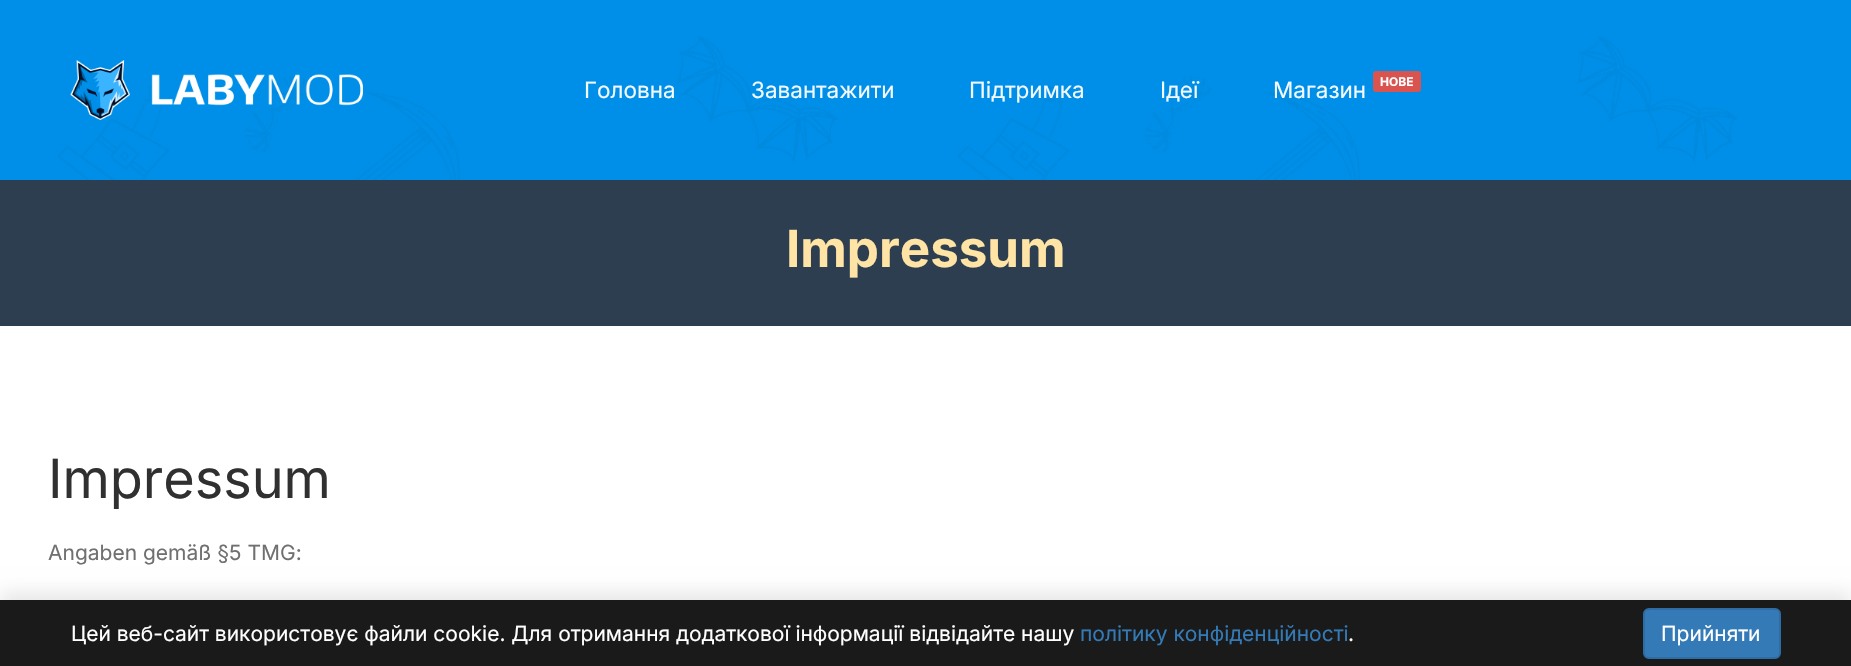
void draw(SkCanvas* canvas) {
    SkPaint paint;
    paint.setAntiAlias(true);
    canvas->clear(0xFFFFFFFF);
    paint.setColor(0xFF008FE8);
    canvas->drawRect(SkRect::MakeXYWH(0, 0, 1851, 180), paint);
    canvas->drawImageRect(SkImages::DeferredFromEncodedData(SkData::MakeFromFileName("img1.png")), SkRect::MakeXYWH(58, 36, 1679, 144), SkSamplingOptions());
    canvas->drawImageRect(SkImages::DeferredFromEncodedData(SkData::MakeFromFileName("img2.png")), SkRect::MakeXYWH(70, 60, 293, 60), SkSamplingOptions());
    SkFont font1(fontMgr->matchFamilyStyle("Inter", SkFontStyle::Normal()), 22.5f);
    font1.setSubpixel(true);
    paint.setColor(0xFFF4F9FF);
    canvas->drawString("Головна", 584, 98, font1, paint);
    canvas->drawString("Завантажити", 751, 98, font1, paint);
    canvas->drawString("Підтримка", 969, 98, font1, paint);
    canvas->drawString("Ідеї", 1160, 98, font1, paint);
    canvas->drawString("Магазин", 1273, 98, font1, paint);
    paint.setColor(0xFFD9534F);
    canvas->drawRoundRect(SkRect::MakeXYWH(1373, 71, 48, 21), 3, 3, paint);
    SkFont font2(fontMgr->matchFamilyStyle("Inter", SkFontStyle::Bold()), 12);
    font2.setSubpixel(true);
    paint.setColor(0xFFFFFFFF);
    canvas->drawString("НОВЕ", 1380, 86, font2, paint);
    paint.setColor(0xFF2C3E50);
    canvas->drawRect(SkRect::MakeXYWH(0, 180, 1851, 146), paint);
    SkFont font3(fontMgr->matchFamilyStyle("Inter", SkFontStyle::Bold()), 51);
    font3.setSubpixel(true);
    paint.setColor(0xFFFFE4A6);
    canvas->drawString("Impressum", 786, 267, font3, paint);
    SkFont font4(fontMgr->matchFamilyStyle("Inter", SkFontStyle::Normal()), 54);
    font4.setSubpixel(true);
    paint.setColor(0xFF303030);
    canvas->drawString("Impressum", 48, 498, font4, paint);
    SkFont font5(fontMgr->matchFamilyStyle("Inter", SkFontStyle::Normal()), 21);
    font5.setSubpixel(true);
    paint.setColor(0xFF707070);
    canvas->drawString("Angaben gemäß §5 TMG:", 48, 560, font5, paint);
    paint.setColor(0x1A000000);
    paint.setMaskFilter(SkMaskFilter::MakeBlur(kNormal_SkBlurStyle, 9));
    canvas->drawRect(SkRect::MakeXYWH(0, 593, 1851, 66), paint);
    paint.setMaskFilter(nullptr);
    paint.setColor(0xFF1A1A1A);
    canvas->drawRect(SkRect::MakeXYWH(0, 600, 1851, 66), paint);
    paint.setColor(0xFFFFFFFF);
    canvas->drawString("Цей веб-сайт використовує файли cookie. Для отримання додаткової інформації відвідайте нашу", 71, 641, font5, paint);
    paint.setColor(0xFF337AB7);
    canvas->drawString("політику конфіденційності", 1080, 641, font5, paint);
    paint.setColor(0xFFFFFFFF);
    canvas->drawString(".", 1348, 641, font5, paint);
    paint.setColor(0xFF337AB7);
    canvas->drawRoundRect(SkRect::MakeXYWH(1644, 609, 136, 49), 5, 5, paint);
    paint.setStyle(SkPaint::kStroke_Style);
    paint.setStrokeWidth(2);
    paint.setColor(0xFF2E6DA4);
    canvas->drawRoundRect(SkRect::MakeXYWH(1644, 609, 136, 49), 5, 5, paint);
    paint.setStyle(SkPaint::kFill_Style);
    paint.setColor(0xFFFFFFFF);
    canvas->drawString("Прийняти", 1661, 641, font5, paint);
}
